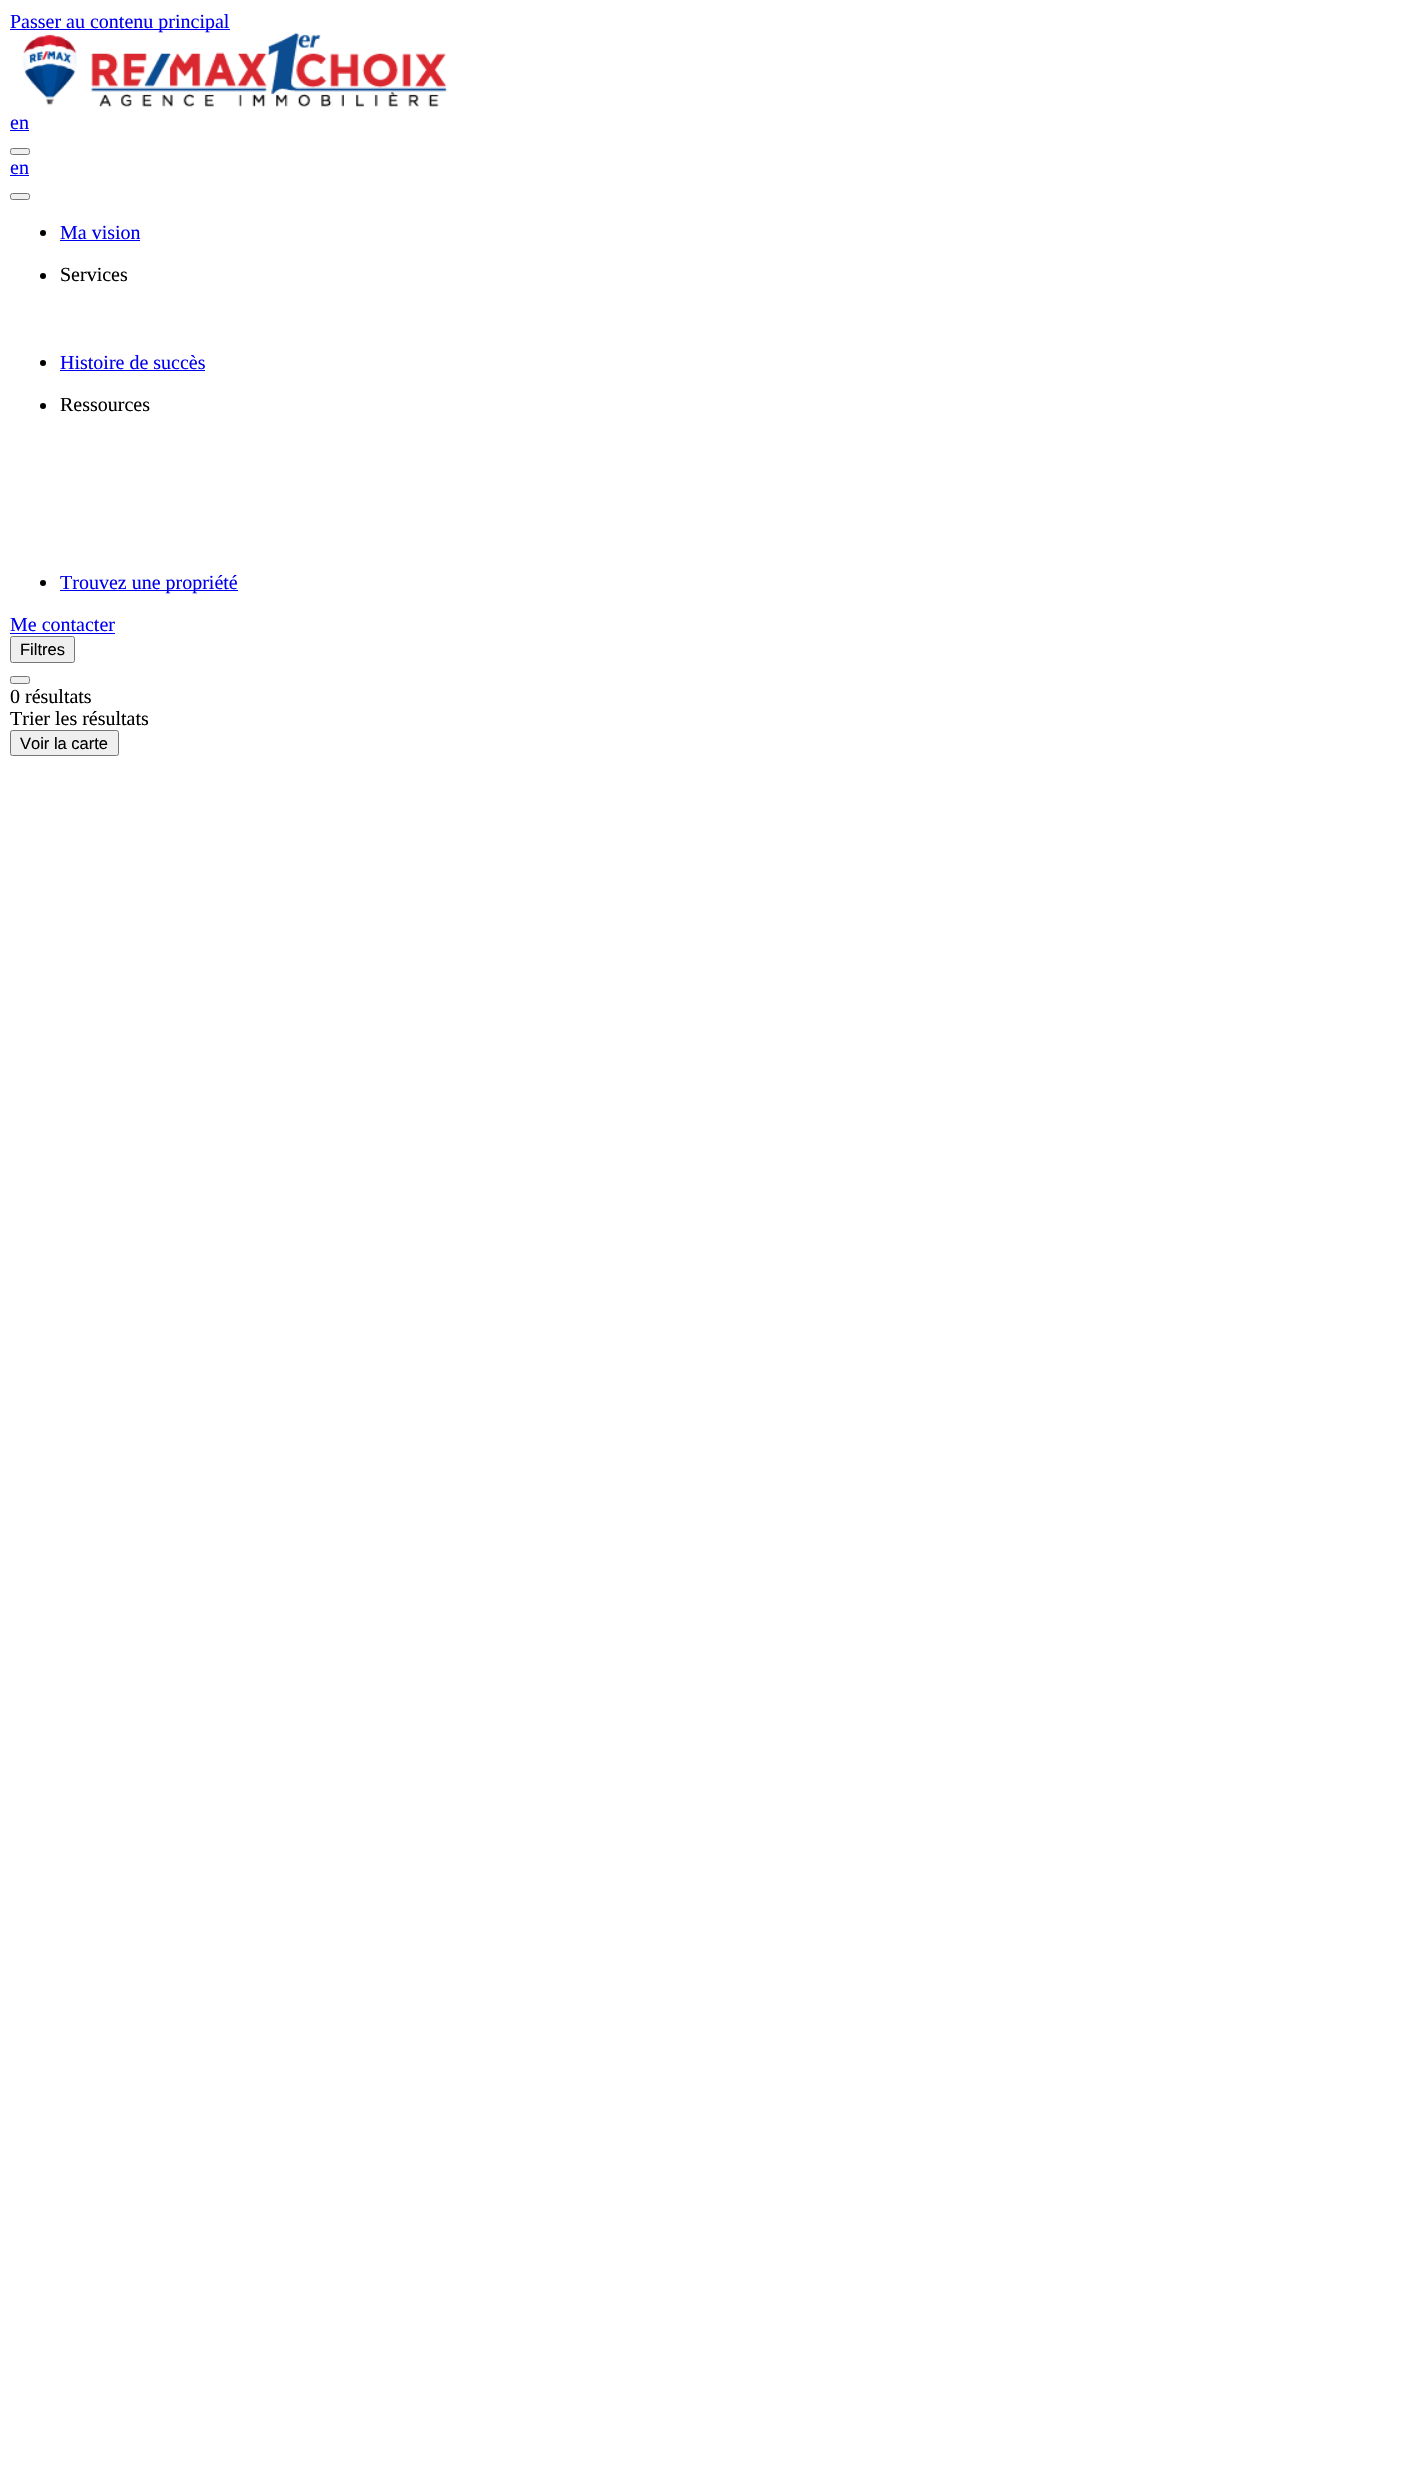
void draw(SkCanvas* canvas) {
    SkPaint paint;
    paint.setAntiAlias(true);
    canvas->clear(0xFFFFFFFF);
    paint.setColor(0xFF0000EE);
    canvas->drawRect(SkRect::MakeXYWH(10, 29, 220, 1), paint);
    SkFont font1(fontMgr->matchFamilyStyle("Liberation Serif", SkFontStyle::Normal()), 20);
    font1.setSubpixel(true);
    canvas->drawString("Passer au contenu principal", 10, 28, font1, paint);
    canvas->drawImageRect(SkImages::DeferredFromEncodedData(SkData::MakeFromFileName("img1.png")), SkRect::MakeXYWH(22, 32, 425, 75), SkSamplingOptions());
    canvas->drawString("en", 10, 129, font1, paint);
    canvas->drawRect(SkRect::MakeXYWH(10, 130, 19, 1), paint);
    paint.setColor(0xFFEFEFEF);
    canvas->drawRoundRect(SkRect::MakeXYWH(10.5f, 148.5f, 19, 6), 2, 2, paint);
    paint.setStyle(SkPaint::kStroke_Style);
    paint.setStrokeWidth(1);
    paint.setColor(0xFF767676);
    canvas->drawRoundRect(SkRect::MakeXYWH(10.5f, 148.5f, 19, 6), 2, 2, paint);
    paint.setStyle(SkPaint::kFill_Style);
    paint.setColor(0xFF0000EE);
    canvas->drawString("en", 10, 174, font1, paint);
    canvas->drawRect(SkRect::MakeXYWH(10, 175, 19, 1), paint);
    paint.setColor(0xFFEFEFEF);
    canvas->drawRoundRect(SkRect::MakeXYWH(10.5f, 193.5f, 19, 6), 2, 2, paint);
    paint.setStyle(SkPaint::kStroke_Style);
    paint.setColor(0xFF767676);
    canvas->drawRoundRect(SkRect::MakeXYWH(10.5f, 193.5f, 19, 6), 2, 2, paint);
    paint.setStyle(SkPaint::kFill_Style);
    paint.setColor(0xFF000000);
    canvas->drawCircle(43, 233, 3, paint);
    paint.setColor(0xFF0000EE);
    canvas->drawString("Ma vision", 60, 239, font1, paint);
    canvas->drawRect(SkRect::MakeXYWH(60, 240, 80, 1), paint);
    paint.setColor(0xFF000000);
    canvas->drawCircle(43, 276, 3, paint);
    canvas->drawString("Services", 60, 281, font1, paint);
    canvas->drawCircle(43, 363, 3, paint);
    paint.setColor(0xFF0000EE);
    canvas->drawString("Histoire de succès", 60, 369, font1, paint);
    canvas->drawRect(SkRect::MakeXYWH(60, 370, 145, 1), paint);
    paint.setColor(0xFF000000);
    canvas->drawCircle(43, 406, 3, paint);
    canvas->drawString("Ressources", 60, 411, font1, paint);
    canvas->drawCircle(43, 583, 3, paint);
    paint.setColor(0xFF0000EE);
    canvas->drawRect(SkRect::MakeXYWH(60, 590, 178, 1), paint);
    canvas->drawString("Trouvez une propriété", 60, 589, font1, paint);
    canvas->drawString("Me contacter", 10, 631, font1, paint);
    canvas->drawRect(SkRect::MakeXYWH(10, 633, 105, 1), paint);
    paint.setColor(0xFFEFEFEF);
    canvas->drawRoundRect(SkRect::MakeXYWH(10.5f, 636.5f, 64, 26), 2, 2, paint);
    paint.setStyle(SkPaint::kStroke_Style);
    paint.setColor(0xFF767676);
    canvas->drawRoundRect(SkRect::MakeXYWH(10.5f, 636.5f, 64, 26), 2, 2, paint);
    SkFont font2(fontMgr->matchFamilyStyle("Liberation Sans", SkFontStyle::Normal()), 16.5f);
    font2.setSubpixel(true);
    paint.setStyle(SkPaint::kFill_Style);
    paint.setColor(0xFF000000);
    canvas->drawString("Filtres", 20, 655, font2, paint);
    paint.setColor(0xFFEFEFEF);
    canvas->drawRoundRect(SkRect::MakeXYWH(10.5f, 676.5f, 19, 7), 2, 2, paint);
    paint.setStyle(SkPaint::kStroke_Style);
    paint.setColor(0xFF767676);
    canvas->drawRoundRect(SkRect::MakeXYWH(10.5f, 676.5f, 19, 7), 2, 2, paint);
    paint.setStyle(SkPaint::kFill_Style);
    paint.setColor(0xFF000000);
    canvas->drawString("0 résultats", 10, 703, font1, paint);
    canvas->drawString("Trier les résultats", 10, 725, font1, paint);
    paint.setColor(0xFFEFEFEF);
    canvas->drawRoundRect(SkRect::MakeXYWH(10.5f, 730.5f, 108, 25), 2, 2, paint);
    paint.setStyle(SkPaint::kStroke_Style);
    paint.setColor(0xFF767676);
    canvas->drawRoundRect(SkRect::MakeXYWH(10.5f, 730.5f, 108, 25), 2, 2, paint);
    paint.setStyle(SkPaint::kFill_Style);
    paint.setColor(0xFF000000);
    canvas->drawString("Voir la carte", 20, 749, font2, paint);
}
